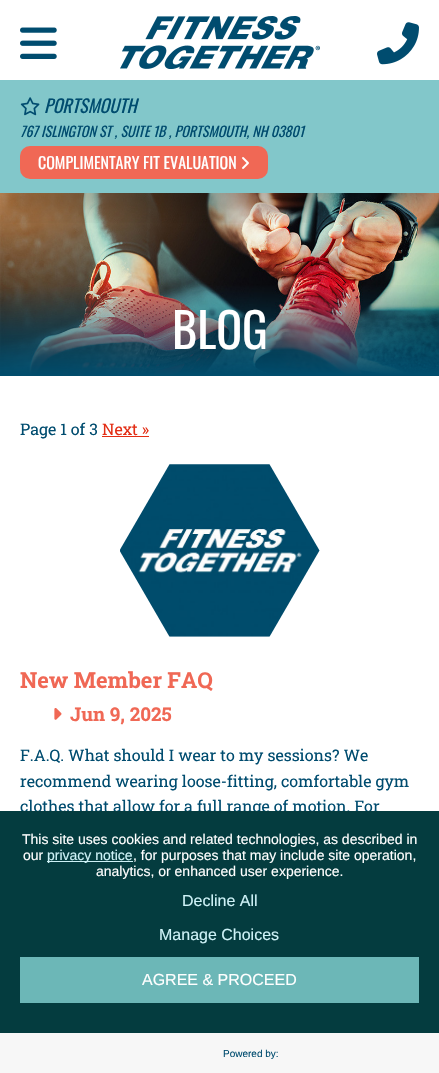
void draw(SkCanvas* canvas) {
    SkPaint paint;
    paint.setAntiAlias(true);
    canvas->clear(0xFFFFFFFF);
    canvas->drawImageRect(SkImages::DeferredFromEncodedData(SkData::MakeFromFileName("img6.png")), SkRect::MakeXYWH(0, 193, 29, 183), SkSamplingOptions());
    canvas->drawImageRect(SkImages::DeferredFromEncodedData(SkData::MakeFromFileName("img7.png")), SkRect::MakeXYWH(29, 193, 410, 183), SkSamplingOptions());
    canvas->save();
    canvas->clipRect(SkRect::MakeXYWH(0, 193, 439, 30));
    paint.setColor(0x40000000);
    paint.setMaskFilter(SkMaskFilter::MakeBlur(kNormal_SkBlurStyle, 10));
    canvas->drawRect(SkRect::MakeXYWH(4, 24, 431, 185), paint);
    paint.setMaskFilter(nullptr);
    canvas->restore();
    canvas->drawImageRect(SkImages::DeferredFromEncodedData(SkData::MakeFromFileName("img1.png")), SkRect::MakeXYWH(20, 27, 37, 32), SkSamplingOptions());
    canvas->drawImageRect(SkImages::DeferredFromEncodedData(SkData::MakeFromFileName("img2.png")), SkRect::MakeXYWH(120, 16, 200, 53), SkSamplingOptions());
    canvas->drawImageRect(SkImages::DeferredFromEncodedData(SkData::MakeFromFileName("img3.png")), SkRect::MakeXYWH(377, 22, 42, 43), SkSamplingOptions());
    paint.setColor(0xFF82C7CA);
    canvas->drawRect(SkRect::MakeXYWH(0, 80, 439, 113), paint);
    canvas->drawImageRect(SkImages::DeferredFromEncodedData(SkData::MakeFromFileName("img4.png")), SkRect::MakeXYWH(20, 97, 20, 19), SkSamplingOptions());
    SkFont font1(fontMgr->matchFamilyStyle("Oswald", SkFontStyle::Italic()), 18);
    font1.setSubpixel(true);
    paint.setColor(0xFF004C6F);
    canvas->drawString("PORTSMOUTH", 44, 113, font1, paint);
    SkFont font2(fontMgr->matchFamilyStyle("Oswald", SkFontStyle::Italic()), 14);
    font2.setSubpixel(true);
    canvas->drawString("767 ISLINGTON ST , SUITE 1B , PORTSMOUTH, NH 03801", 20, 137, font2, paint);
    paint.setColor(0xFFF06855);
    canvas->drawRoundRect(SkRect::MakeXYWH(20, 146, 248, 33), 10, 10, paint);
    SkFont font3(fontMgr->matchFamilyStyle("Oswald", SkFontStyle::Normal()), 16);
    font3.setSubpixel(true);
    paint.setColor(0xFFFFFFFF);
    canvas->drawString("COMPLIMENTARY FIT EVALUATION", 38, 169, font3, paint);
    canvas->drawImageRect(SkImages::DeferredFromEncodedData(SkData::MakeFromFileName("img5.png")), SkRect::MakeXYWH(242, 157, 7, 12), SkSamplingOptions());
    {
        const SkColor colors[] = {0xFF004C6C, 0x00004C6C};
        const float stops[] = {0, 0.5f};
        const SkPoint ends[] = {{220, 376}, {219, 193}};
        paint.setShader(SkGradientShader::MakeLinear(ends, colors, stops, 2, SkTileMode::kClamp));
        paint.setAlpha(255);
    }
    canvas->drawRect(SkRect::MakeXYWH(0, 285, 439, 91), paint);
    SkFont font4(fontMgr->matchFamilyStyle("Oswald", SkFontStyle::Normal()), 48);
    font4.setSubpixel(true);
    paint.setShader(nullptr);
    paint.setColor(0xFFFFFFFF);
    canvas->drawString("BLOG", 172, 349, font4, paint);
    SkFont font5(fontMgr->matchFamilyStyle("Roboto Slab", SkFontStyle::Normal()), 16);
    font5.setSubpixel(true);
    paint.setColor(0xFF004C6F);
    canvas->drawString("Page 1 of 3", 20, 435, font5, paint);
    paint.setColor(0xFFE32D14);
    canvas->drawString("Next »", 102, 435, font5, paint);
    canvas->drawRect(SkRect::MakeXYWH(102, 436, 47, 1), paint);
    canvas->drawImageRect(SkImages::DeferredFromEncodedData(SkData::MakeFromFileName("img8.png")), SkRect::MakeXYWH(120, 464, 200, 173), SkSamplingOptions());
    SkFont font6(fontMgr->matchFamilyStyle("Roboto Slab", SkFontStyle::Bold()), 22);
    font6.setSubpixel(true);
    paint.setColor(0xFFF06855);
    canvas->drawString("New Member FAQ", 20, 688, font6, paint);
    canvas->drawImageRect(SkImages::DeferredFromEncodedData(SkData::MakeFromFileName("img9.png")), SkRect::MakeXYWH(54, 708, 8, 12), SkSamplingOptions());
    SkFont font7(fontMgr->matchFamilyStyle("Roboto Slab", SkFontStyle::Bold()), 19);
    font7.setSubpixel(true);
    canvas->drawString("Jun 9, 2025", 70, 721, font7, paint);
    paint.setColor(0xFF004C6F);
    canvas->drawString("F.A.Q. What should I wear to my sessions? We", 20, 761, font5, paint);
    canvas->drawString("recommend wearing loose-fitting, comfortable gym", 20, 787, font5, paint);
    canvas->drawString("clothes that allow for a full range of motion. For", 20, 812, font5, paint);
    paint.setColor(0xFF043C3F);
    canvas->drawRect(SkRect::MakeXYWH(0, 811, 439, 222), paint);
    SkFont font8(fontMgr->matchFamilyStyle("Liberation Sans", SkFontStyle::Normal()), 14);
    font8.setSubpixel(true);
    paint.setColor(0xFFFFFFFF);
    canvas->drawString("This site uses cookies and related technologies, as described in", 22, 844, font8, paint);
    canvas->drawString("our", 23, 860, font8, paint);
    paint.setColor(0xFFCEF2F7);
    canvas->drawRect(SkRect::MakeXYWH(47, 861, 86, 1), paint);
    canvas->drawString("privacy notice", 47, 860, font8, paint);
    paint.setColor(0xFFFFFFFF);
    canvas->drawString(", for purposes that may include site operation,", 133, 860, font8, paint);
    canvas->drawString("analytics, or enhanced user experience.", 96, 876, font8, paint);
    SkFont font9(fontMgr->matchFamilyStyle("Liberation Sans", SkFontStyle::Normal()), 16);
    font9.setSubpixel(true);
    paint.setColor(0xFFCEF2F7);
    canvas->drawString("Decline All", 182, 906, font9, paint);
    canvas->drawString("Manage Choices", 159, 940, font9, paint);
    paint.setColor(0xFF6CB7B7);
    canvas->drawRect(SkRect::MakeXYWH(20, 957, 399, 46), paint);
    paint.setColor(0xFFFFFFFF);
    canvas->drawString("AGREE & PROCEED", 142, 985, font9, paint);
    paint.setColor(0xFFF7F7F7);
    canvas->drawRect(SkRect::MakeXYWH(0, 1033, 439, 40), paint);
    SkFont font10(fontMgr->matchFamilyStyle("Liberation Sans", SkFontStyle::Normal()), 10);
    font10.setSubpixel(true);
    paint.setColor(0xFF004C6F);
    canvas->drawString("Powered by:", 223, 1057, font10, paint);
}
